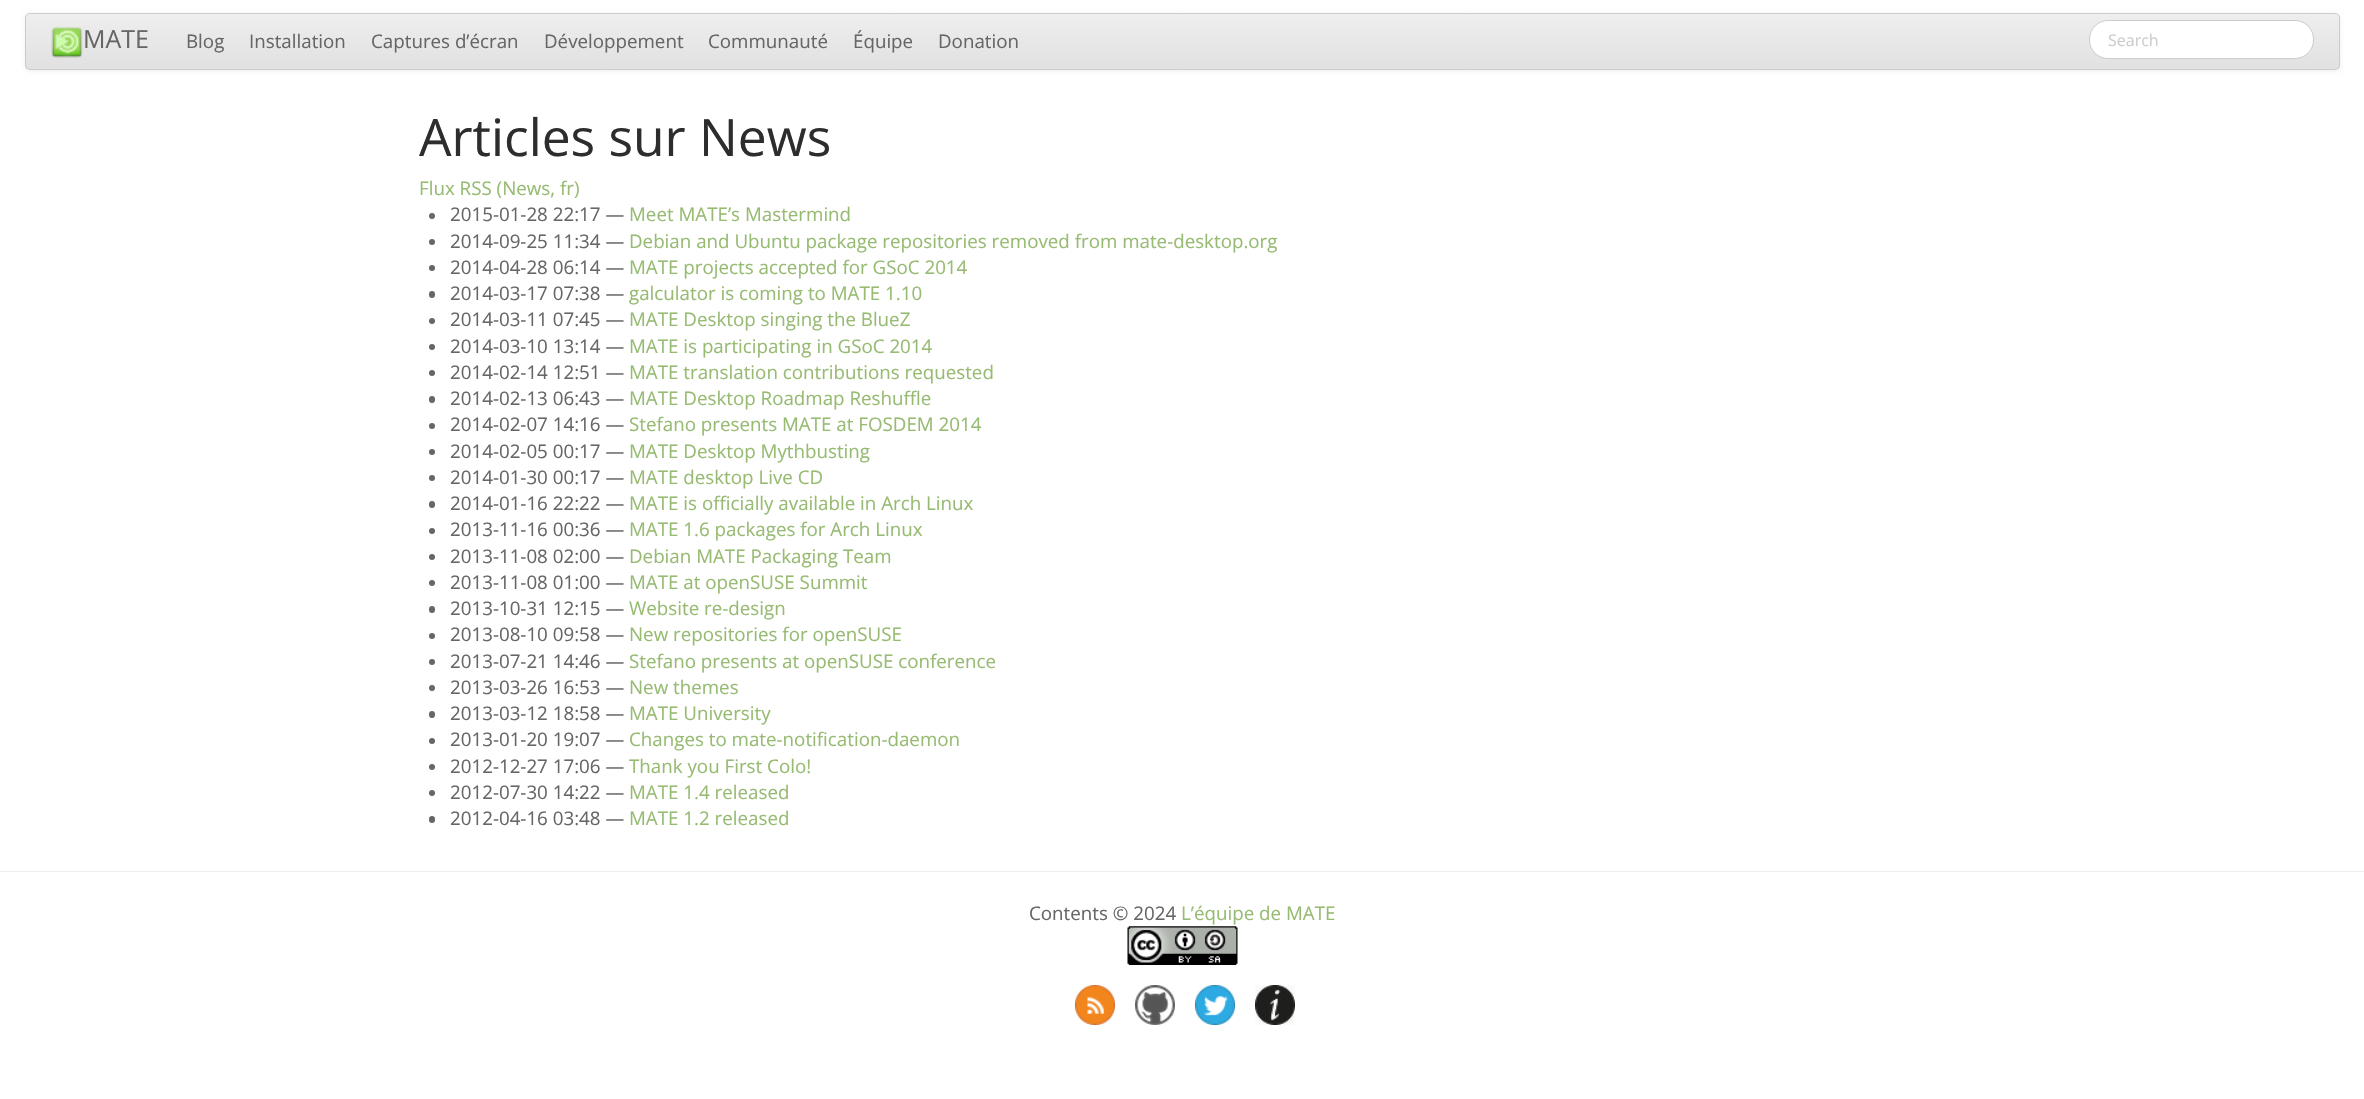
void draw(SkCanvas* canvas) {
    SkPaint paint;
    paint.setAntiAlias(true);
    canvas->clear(0xFFFFFFFF);
    paint.setColor(0x12000000);
    paint.setMaskFilter(SkMaskFilter::MakeBlur(kNormal_SkBlurStyle, 2.5f));
    canvas->drawRoundRect(SkRect::MakeXYWH(25, 14, 2315, 57), 5, 5, paint);
    paint.setMaskFilter(nullptr);
    canvas->save();
    canvas->clipPath(SkPathBuilder().moveTo(30, 13).lineTo(2335, 13).cubicTo(2338, 13, 2340, 15, 2340, 18).lineTo(2340, 65).cubicTo(2340, 68, 2338, 70, 2335, 70).lineTo(30, 70).cubicTo(27, 70, 25, 68, 25, 65).lineTo(25, 18).cubicTo(25, 15, 27, 13, 30, 13).close().detach(), true);
    {
        const SkColor colors[] = {0xFFEEEEEE, 0xFFE1E1E1};
        const float stops[] = {0, 1};
        const SkPoint ends[] = {{1183, 14}, {1183, 69}};
        paint.setShader(SkGradientShader::MakeLinear(ends, colors, stops, 2, SkTileMode::kClamp));
        paint.setAlpha(255);
    }
    canvas->drawRect(SkRect::MakeXYWH(25, 14, 2315, 55), paint);
    canvas->restore();
    paint.setStyle(SkPaint::kStroke_Style);
    paint.setStrokeWidth(1);
    paint.setShader(nullptr);
    paint.setColor(0xFFCCCCCC);
    canvas->drawRoundRect(SkRect::MakeXYWH(25.5f, 13.5f, 2314, 56), 4.5f, 4.5f, paint);
    canvas->drawImageRect(SkImages::DeferredFromEncodedData(SkData::MakeFromFileName("img1.png")), SkRect::MakeXYWH(51, 27, 32, 31), SkSamplingOptions());
    SkFont font1(fontMgr->matchFamilyStyle("Open Sans", SkFontStyle::Normal()), 25);
    font1.setSubpixel(true);
    paint.setStyle(SkPaint::kFill_Style);
    paint.setColor(0xFF666666);
    canvas->drawString("MATE", 83, 48, font1, paint);
    SkFont font2(fontMgr->matchFamilyStyle("Open Sans", SkFontStyle::Normal()), 18.75f);
    font2.setSubpixel(true);
    canvas->drawString("Blog", 186, 48, font2, paint);
    canvas->drawString("Installation", 249, 48, font2, paint);
    canvas->drawString("Captures d’écran", 371, 48, font2, paint);
    canvas->drawString("Développement", 544, 48, font2, paint);
    canvas->drawString("Communauté", 708, 48, font2, paint);
    canvas->drawString("Équipe", 853, 48, font2, paint);
    canvas->drawString("Donation", 938, 48, font2, paint);
    paint.setColor(0xFFFFFFFF);
    canvas->drawRoundRect(SkRect::MakeXYWH(2089.5f, 20.5f, 224, 38), 18.5f, 18.5f, paint);
    paint.setStyle(SkPaint::kStroke_Style);
    paint.setColor(0xFFCCCCCC);
    canvas->drawRoundRect(SkRect::MakeXYWH(2089.5f, 20.5f, 224, 38), 18.5f, 18.5f, paint);
    SkFont font3(fontMgr->matchFamilyStyle("Open Sans", SkFontStyle::Normal()), 16);
    font3.setSubpixel(true);
    paint.setStyle(SkPaint::kFill_Style);
    canvas->drawString("Search", 2108, 46, font3, paint);
    SkFont font4(fontMgr->matchFamilyStyle("Open Sans", SkFontStyle::Normal()), 51.5f);
    font4.setSubpixel(true);
    paint.setColor(0xFF2D2D2D);
    canvas->drawString("Articles sur News", 419, 156, font4, paint);
    paint.setColor(0xFF97BB72);
    canvas->drawString("Flux RSS (News, fr)", 419, 195, font2, paint);
    paint.setColor(0xFF666666);
    canvas->drawCircle(432, 216, 3, paint);
    canvas->drawString("2015-01-28 22:17 —", 450, 221, font2, paint);
    paint.setColor(0xFF97BB72);
    canvas->drawString("Meet MATE’s Mastermind", 629, 221, font2, paint);
    paint.setColor(0xFF666666);
    canvas->drawCircle(432, 242, 3, paint);
    canvas->drawString("2014-09-25 11:34 —", 450, 248, font2, paint);
    paint.setColor(0xFF97BB72);
    canvas->drawString("Debian and Ubuntu package repositories removed from mate-desktop.org", 629, 248, font2, paint);
    paint.setColor(0xFF666666);
    canvas->drawCircle(432, 268, 3, paint);
    canvas->drawString("2014-04-28 06:14 —", 450, 274, font2, paint);
    paint.setColor(0xFF97BB72);
    canvas->drawString("MATE projects accepted for GSoC 2014", 629, 274, font2, paint);
    paint.setColor(0xFF666666);
    canvas->drawRoundRect(SkRect::MakeXYWH(429, 291, 6, 7), 3, 3, paint);
    canvas->drawString("2014-03-17 07:38 —", 450, 300, font2, paint);
    paint.setColor(0xFF97BB72);
    canvas->drawString("galculator is coming to MATE 1.10", 629, 300, font2, paint);
    paint.setColor(0xFF666666);
    canvas->drawCircle(432, 321, 3, paint);
    canvas->drawString("2014-03-11 07:45 —", 450, 326, font2, paint);
    paint.setColor(0xFF97BB72);
    canvas->drawString("MATE Desktop singing the BlueZ", 629, 326, font2, paint);
    paint.setColor(0xFF666666);
    canvas->drawCircle(432, 347, 3, paint);
    canvas->drawString("2014-03-10 13:14 —", 450, 353, font2, paint);
    paint.setColor(0xFF97BB72);
    canvas->drawString("MATE is participating in GSoC 2014", 629, 353, font2, paint);
    paint.setColor(0xFF666666);
    canvas->drawCircle(432, 373, 3, paint);
    canvas->drawString("2014-02-14 12:51 —", 450, 379, font2, paint);
    paint.setColor(0xFF97BB72);
    canvas->drawString("MATE translation contributions requested", 629, 379, font2, paint);
    paint.setColor(0xFF666666);
    canvas->drawRoundRect(SkRect::MakeXYWH(429, 396, 6, 7), 3, 3, paint);
    canvas->drawString("2014-02-13 06:43 —", 450, 405, font2, paint);
    paint.setColor(0xFF97BB72);
    canvas->drawString("MATE Desktop Roadmap Reshuffle", 629, 405, font2, paint);
    paint.setColor(0xFF666666);
    canvas->drawCircle(432, 426, 3, paint);
    canvas->drawString("2014-02-07 14:16 —", 450, 431, font2, paint);
    paint.setColor(0xFF97BB72);
    canvas->drawString("Stefano presents MATE at FOSDEM 2014", 629, 431, font2, paint);
    paint.setColor(0xFF666666);
    canvas->drawCircle(432, 452, 3, paint);
    canvas->drawString("2014-02-05 00:17 —", 450, 458, font2, paint);
    paint.setColor(0xFF97BB72);
    canvas->drawString("MATE Desktop Mythbusting", 629, 458, font2, paint);
    paint.setColor(0xFF666666);
    canvas->drawCircle(432, 478, 3, paint);
    canvas->drawString("2014-01-30 00:17 —", 450, 484, font2, paint);
    paint.setColor(0xFF97BB72);
    canvas->drawString("MATE desktop Live CD", 629, 484, font2, paint);
    paint.setColor(0xFF666666);
    canvas->drawRoundRect(SkRect::MakeXYWH(429, 501, 6, 7), 3, 3, paint);
    canvas->drawString("2014-01-16 22:22 —", 450, 510, font2, paint);
    paint.setColor(0xFF97BB72);
    canvas->drawString("MATE is officially available in Arch Linux", 629, 510, font2, paint);
    paint.setColor(0xFF666666);
    canvas->drawCircle(432, 531, 3, paint);
    canvas->drawString("2013-11-16 00:36 —", 450, 536, font2, paint);
    paint.setColor(0xFF97BB72);
    canvas->drawString("MATE 1.6 packages for Arch Linux", 629, 536, font2, paint);
    paint.setColor(0xFF666666);
    canvas->drawCircle(432, 557, 3, paint);
    canvas->drawString("2013-11-08 02:00 —", 450, 563, font2, paint);
    paint.setColor(0xFF97BB72);
    canvas->drawString("Debian MATE Packaging Team", 629, 563, font2, paint);
    paint.setColor(0xFF666666);
    canvas->drawCircle(432, 583, 3, paint);
    canvas->drawString("2013-11-08 01:00 —", 450, 589, font2, paint);
    paint.setColor(0xFF97BB72);
    canvas->drawString("MATE at openSUSE Summit", 629, 589, font2, paint);
    paint.setColor(0xFF666666);
    canvas->drawRoundRect(SkRect::MakeXYWH(429, 606, 6, 7), 3, 3, paint);
    canvas->drawString("2013-10-31 12:15 —", 450, 615, font2, paint);
    paint.setColor(0xFF97BB72);
    canvas->drawString("Website re-design", 629, 615, font2, paint);
    paint.setColor(0xFF666666);
    canvas->drawCircle(432, 636, 3, paint);
    canvas->drawString("2013-08-10 09:58 —", 450, 641, font2, paint);
    paint.setColor(0xFF97BB72);
    canvas->drawString("New repositories for openSUSE", 629, 641, font2, paint);
    paint.setColor(0xFF666666);
    canvas->drawCircle(432, 662, 3, paint);
    canvas->drawString("2013-07-21 14:46 —", 450, 668, font2, paint);
    paint.setColor(0xFF97BB72);
    canvas->drawString("Stefano presents at openSUSE conference", 629, 668, font2, paint);
    paint.setColor(0xFF666666);
    canvas->drawCircle(432, 688, 3, paint);
    canvas->drawString("2013-03-26 16:53 —", 450, 694, font2, paint);
    paint.setColor(0xFF97BB72);
    canvas->drawString("New themes", 629, 694, font2, paint);
    paint.setColor(0xFF666666);
    canvas->drawRoundRect(SkRect::MakeXYWH(429, 711, 6, 7), 3, 3, paint);
    canvas->drawString("2013-03-12 18:58 —", 450, 720, font2, paint);
    paint.setColor(0xFF97BB72);
    canvas->drawString("MATE University", 629, 720, font2, paint);
    paint.setColor(0xFF666666);
    canvas->drawCircle(432, 741, 3, paint);
    canvas->drawString("2013-01-20 19:07 —", 450, 746, font2, paint);
    paint.setColor(0xFF97BB72);
    canvas->drawString("Changes to mate-notification-daemon", 629, 746, font2, paint);
    paint.setColor(0xFF666666);
    canvas->drawCircle(432, 767, 3, paint);
    canvas->drawString("2012-12-27 17:06 —", 450, 773, font2, paint);
    paint.setColor(0xFF97BB72);
    canvas->drawString("Thank you First Colo!", 629, 773, font2, paint);
    paint.setColor(0xFF666666);
    canvas->drawCircle(432, 793, 3, paint);
    canvas->drawString("2012-07-30 14:22 —", 450, 799, font2, paint);
    paint.setColor(0xFF97BB72);
    canvas->drawString("MATE 1.4 released", 629, 799, font2, paint);
    paint.setColor(0xFF666666);
    canvas->drawRoundRect(SkRect::MakeXYWH(429, 816, 6, 7), 3, 3, paint);
    canvas->drawString("2012-04-16 03:48 —", 450, 825, font2, paint);
    paint.setColor(0xFF97BB72);
    canvas->drawString("MATE 1.2 released", 629, 825, font2, paint);
    paint.setColor(0xFFEEEEEE);
    canvas->drawRect(SkRect::MakeXYWH(0, 871, 2364, 1), paint);
    paint.setColor(0xFF666666);
    canvas->drawString("Contents © 2024", 1029, 920, font2, paint);
    paint.setColor(0xFF97BB72);
    canvas->drawString("L’équipe de MATE", 1181, 920, font2, paint);
    canvas->drawImageRect(SkImages::DeferredFromEncodedData(SkData::MakeFromFileName("img2.png")), SkRect::MakeXYWH(1127, 926, 111, 39), SkSamplingOptions());
    canvas->drawImageRect(SkImages::DeferredFromEncodedData(SkData::MakeFromFileName("img3.png")), SkRect::MakeXYWH(1075, 985, 40, 40), SkSamplingOptions());
    canvas->drawImageRect(SkImages::DeferredFromEncodedData(SkData::MakeFromFileName("img4.png")), SkRect::MakeXYWH(1135, 985, 40, 40), SkSamplingOptions());
    canvas->drawImageRect(SkImages::DeferredFromEncodedData(SkData::MakeFromFileName("img5.png")), SkRect::MakeXYWH(1195, 985, 40, 40), SkSamplingOptions());
    canvas->drawImageRect(SkImages::DeferredFromEncodedData(SkData::MakeFromFileName("img6.png")), SkRect::MakeXYWH(1255, 985, 40, 40), SkSamplingOptions());
}
